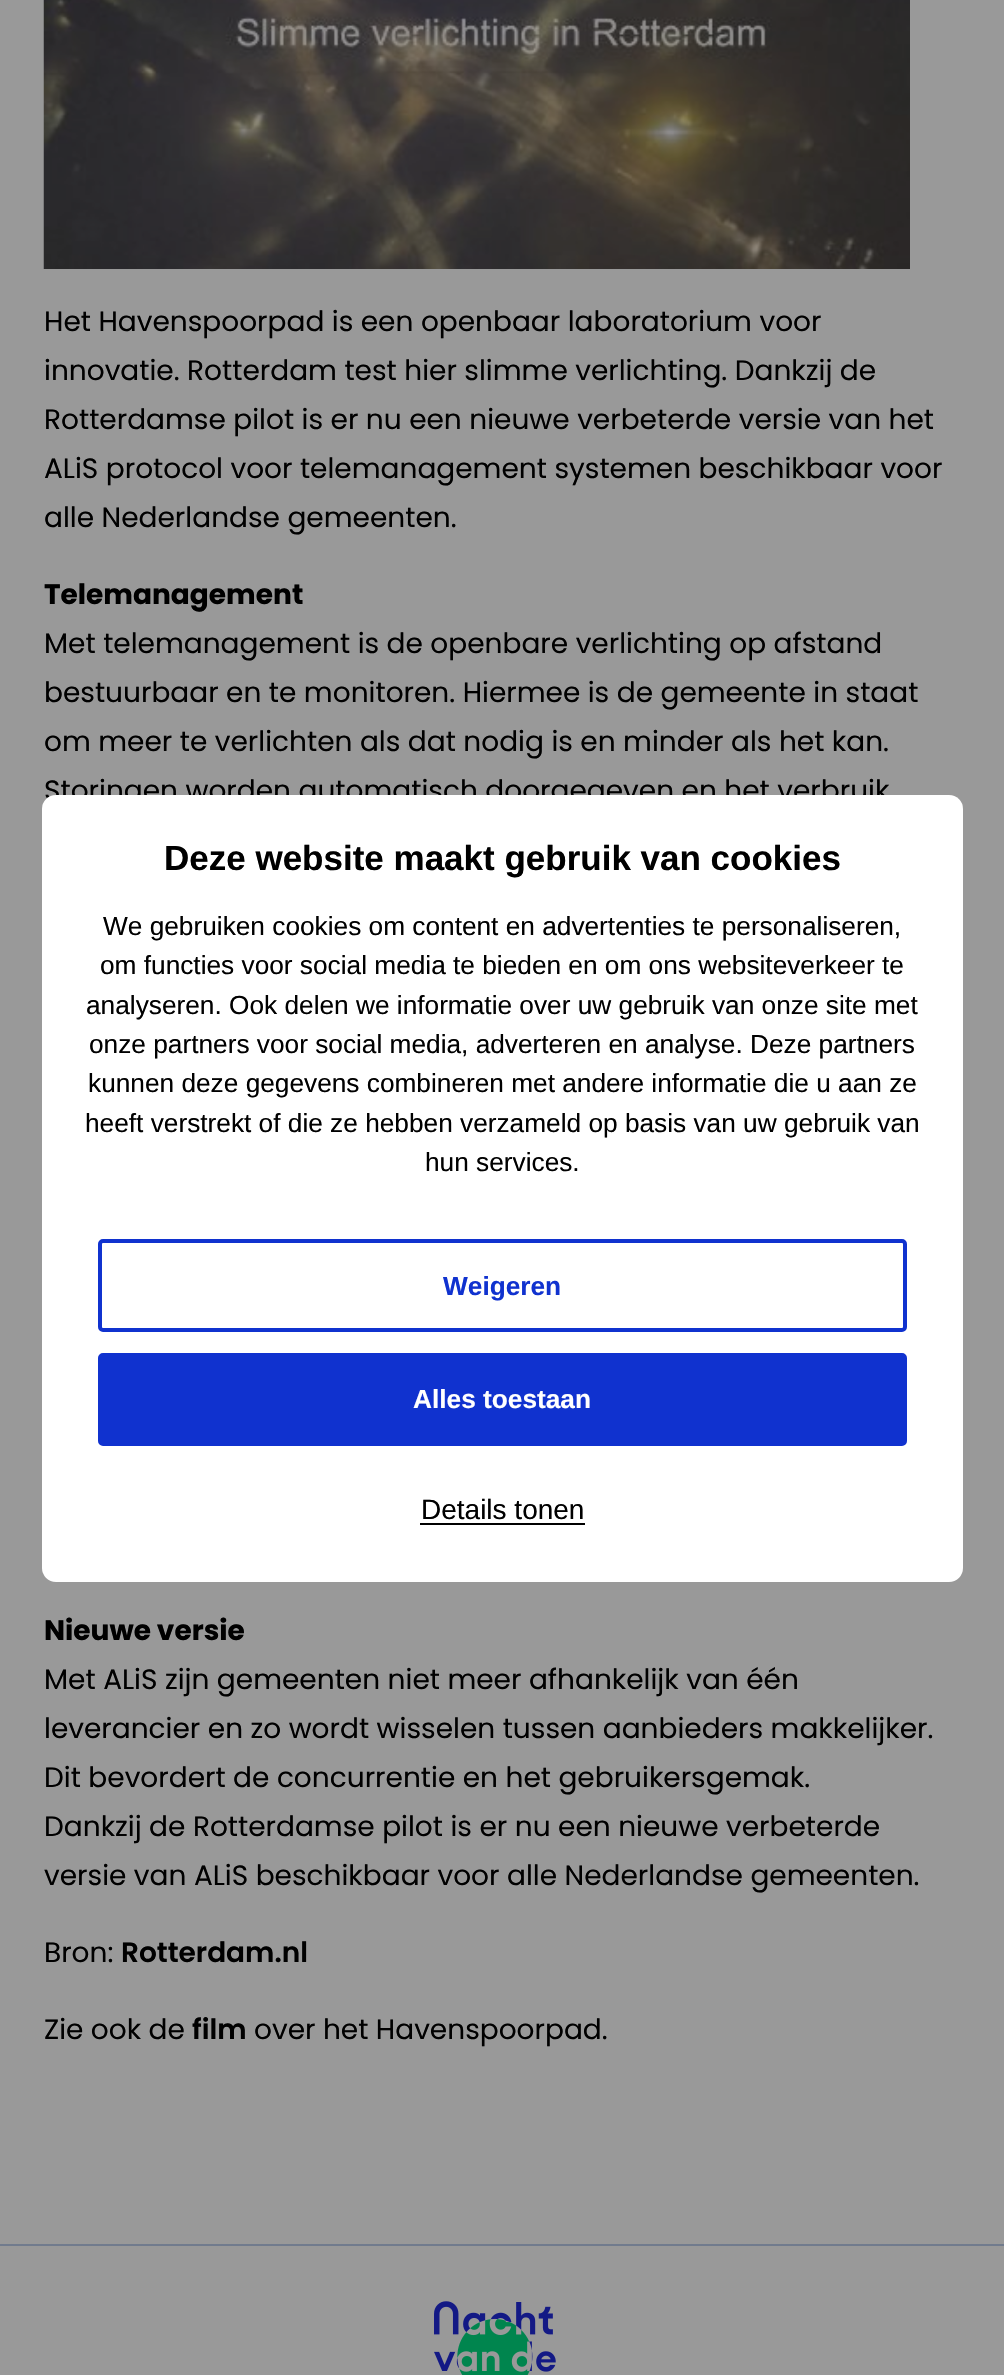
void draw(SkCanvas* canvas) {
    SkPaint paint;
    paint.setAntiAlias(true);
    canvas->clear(0xFF999999);
    canvas->drawImageRect(SkImages::DeferredFromEncodedData(SkData::MakeFromFileName("img1.png")), SkRect::MakeXYWH(43, 0, 867, 269), SkSamplingOptions());
    SkFont font1(fontMgr->matchFamilyStyle("Poppins", SkFontStyle::Normal()), 28);
    font1.setSubpixel(true);
    paint.setColor(0xFF000000);
    canvas->drawString("Het Havenspoorpad is een openbaar laboratorium voor", 44, 331, font1, paint);
    canvas->drawString("innovatie. Rotterdam test hier slimme verlichting. Dankzij de", 44, 380, font1, paint);
    canvas->drawString("Rotterdamse pilot is er nu een nieuwe verbeterde versie van het", 44, 429, font1, paint);
    canvas->drawString("ALiS protocol voor telemanagement systemen beschikbaar voor", 44, 478, font1, paint);
    canvas->drawString("alle Nederlandse gemeenten.", 44, 527, font1, paint);
    SkFont font2(fontMgr->matchFamilyStyle("Poppins", SkFontStyle::Bold()), 28);
    font2.setSubpixel(true);
    canvas->drawString("Telemanagement", 44, 604, font2, paint);
    canvas->drawString("Met telemanagement is de openbare verlichting op afstand", 44, 653, font1, paint);
    canvas->drawString("bestuurbaar en te monitoren. Hiermee is de gemeente in staat", 44, 702, font1, paint);
    canvas->drawString("om meer te verlichten als dat nodig is en minder als het kan.", 44, 751, font1, paint);
    canvas->drawString("Storingen worden automatisch doorgegeven en het verbruik", 44, 800, font1, paint);
    canvas->drawString("Nieuwe versie", 44, 1640, font2, paint);
    canvas->drawString("Met ALiS zijn gemeenten niet meer afhankelijk van één", 44, 1689, font1, paint);
    canvas->drawString("leverancier en zo wordt wisselen tussen aanbieders makkelijker.", 44, 1738, font1, paint);
    canvas->drawString("Dit bevordert de concurrentie en het gebruikersgemak.", 44, 1787, font1, paint);
    canvas->drawString("Dankzij de Rotterdamse pilot is er nu een nieuwe verbeterde", 44, 1836, font1, paint);
    canvas->drawString("versie van ALiS beschikbaar voor alle Nederlandse gemeenten.", 44, 1885, font1, paint);
    canvas->drawString("Bron:", 44, 1962, font1, paint);
    SkFont font3(fontMgr->matchFamilyStyle("Poppins", SkFontStyle(600, SkFontStyle::kNormal_Width, SkFontStyle::kUpright_Slant)), 28);
    font3.setSubpixel(true);
    canvas->drawString("Rotterdam.nl", 121, 1962, font3, paint);
    canvas->drawString("Zie ook de", 44, 2039, font1, paint);
    canvas->drawString("film", 192, 2039, font3, paint);
    canvas->drawString("over het Havenspoorpad.", 254, 2039, font1, paint);
    paint.setColor(0xFFFFFFFF);
    canvas->drawRoundRect(SkRect::MakeXYWH(42, 795, 921, 787), 14, 14, paint);
    SkFont font4(fontMgr->matchFamilyStyle("Liberation Sans", SkFontStyle::Bold()), 35);
    font4.setSubpixel(true);
    paint.setColor(0xFF000000);
    canvas->drawString("Deze website maakt gebruik van cookies", 164, 870, font4, paint);
    SkFont font5(fontMgr->matchFamilyStyle("Liberation Sans", SkFontStyle::Normal()), 26.25f);
    font5.setSubpixel(true);
    canvas->drawString("We gebruiken cookies om content en advertenties te personaliseren,", 103, 935, font5, paint);
    canvas->drawString("om functies voor social media te bieden en om ons websiteverkeer te", 100, 974, font5, paint);
    canvas->drawString("analyseren. Ook delen we informatie over uw gebruik van onze site met", 86, 1014, font5, paint);
    canvas->drawString("onze partners voor social media, adverteren en analyse. Deze partners", 89, 1053, font5, paint);
    canvas->drawString("kunnen deze gegevens combineren met andere informatie die u aan ze", 88, 1092, font5, paint);
    canvas->drawString("heeft verstrekt of die ze hebben verzameld op basis van uw gebruik van", 85, 1132, font5, paint);
    canvas->drawString("hun services.", 425, 1171, font5, paint);
    paint.setStyle(SkPaint::kStroke_Style);
    paint.setStrokeWidth(4);
    paint.setColor(0xFF1032CF);
    canvas->drawRoundRect(SkRect::MakeXYWH(100, 1241, 805, 89), 3, 3, paint);
    SkFont font6(fontMgr->matchFamilyStyle("Liberation Sans", SkFontStyle::Bold()), 26.25f);
    font6.setSubpixel(true);
    paint.setStyle(SkPaint::kFill_Style);
    canvas->drawString("Weigeren", 443, 1295, font6, paint);
    canvas->drawRoundRect(SkRect::MakeXYWH(100, 1355, 805, 89), 3, 3, paint);
    paint.setStyle(SkPaint::kStroke_Style);
    canvas->drawRoundRect(SkRect::MakeXYWH(100, 1355, 805, 89), 3, 3, paint);
    paint.setStyle(SkPaint::kFill_Style);
    paint.setColor(0xFFFFFFFF);
    canvas->drawString("Alles toestaan", 413, 1408, font6, paint);
    SkFont font7(fontMgr->matchFamilyStyle("Liberation Sans", SkFontStyle::Normal()), 28);
    font7.setSubpixel(true);
    paint.setColor(0xFF000000);
    canvas->drawString("Details tonen", 421, 1519, font7, paint);
    canvas->drawRect(SkRect::MakeXYWH(420, 1523, 165, 2), paint);
    paint.setColor(0xFF717B8D);
    canvas->drawRect(SkRect::MakeXYWH(0, 2244, 1004, 2), paint);
    canvas->drawImageRect(SkImages::DeferredFromEncodedData(SkData::MakeFromFileName("img2.png")), SkRect::MakeXYWH(434, 2301, 122, 74), SkSamplingOptions());
}
